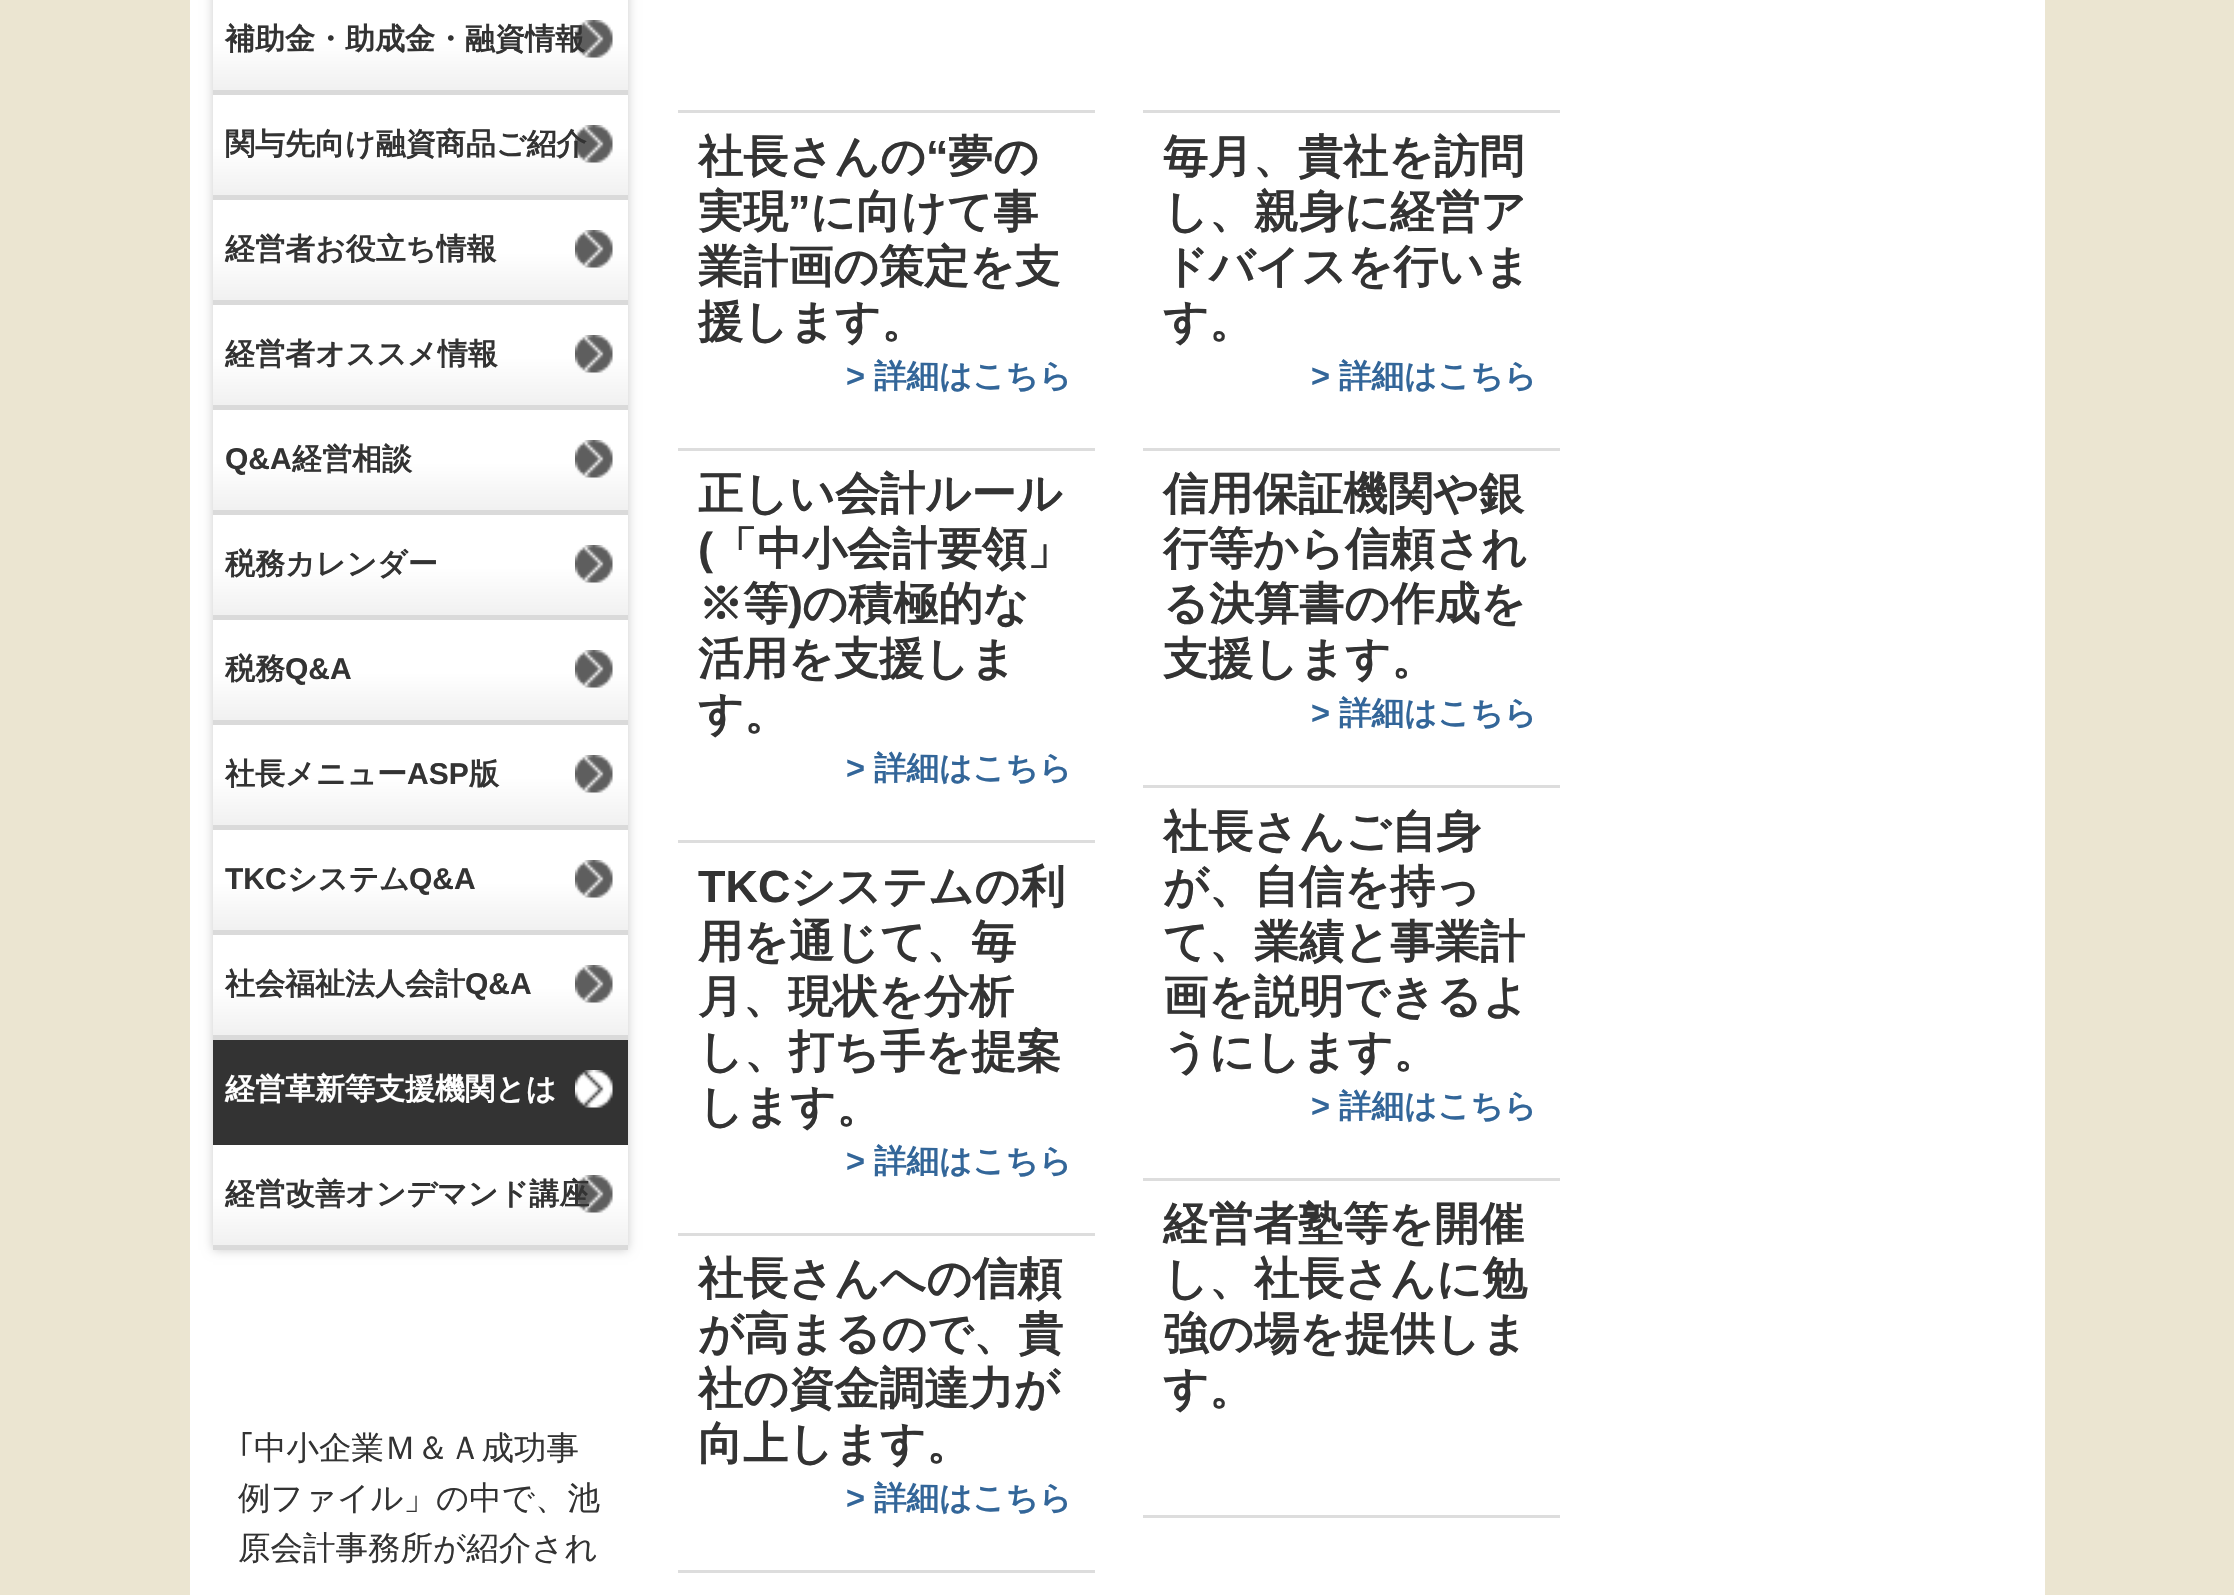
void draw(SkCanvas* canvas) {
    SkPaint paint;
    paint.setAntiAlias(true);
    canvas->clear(0xFFEBE5D1);
    paint.setColor(0xFFFFFFFF);
    canvas->drawRect(SkRect::MakeXYWH(190, 0, 1855, 1595), paint);
    paint.setColor(0xFFCCCCCC);
    paint.setMaskFilter(SkMaskFilter::MakeBlur(kNormal_SkBlurStyle, 5));
    canvas->drawRect(SkRect::MakeXYWH(213, -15, 415, 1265), paint);
    paint.setMaskFilter(nullptr);
    {
        const SkColor colors[] = {0xFFFFFFFF, 0xFFFFFFFF, 0xFFEFEFEF};
        const float stops[] = {0, 0.5f, 1};
        const SkPoint ends[] = {{213, -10}, {213, 95}};
        paint.setShader(SkGradientShader::MakeLinear(ends, colors, stops, 3, SkTileMode::kClamp));
        paint.setAlpha(255);
    }
    canvas->drawRect(SkRect::MakeXYWH(213, 0, 415, 90), paint);
    canvas->drawImageRect(SkImages::DeferredFromEncodedData(SkData::MakeFromFileName("img1.png")), SkRect::MakeXYWH(575, 20, 38, 38), SkSamplingOptions());
    paint.setShader(nullptr);
    paint.setColor(0xFFDADADA);
    canvas->drawRect(SkRect::MakeXYWH(213, 90, 415, 5), paint);
    SkFont font1(fontMgr->matchFamilyStyle("WenQuanYi Zen Hei", SkFontStyle::Bold()), 30);
    font1.setSubpixel(true);
    paint.setColor(0xFF333333);
    canvas->drawString("補助金・助成金・融資情報", 225, 49, font1, paint);
    {
        const SkColor colors[] = {0xFFFFFFFF, 0xFFFFFFFF, 0xFFEFEFEF};
        const float stops[] = {0, 0.5f, 1};
        const SkPoint ends[] = {{213, 95}, {213, 200}};
        paint.setShader(SkGradientShader::MakeLinear(ends, colors, stops, 3, SkTileMode::kClamp));
        paint.setAlpha(255);
    }
    canvas->drawRect(SkRect::MakeXYWH(213, 95, 415, 100), paint);
    canvas->drawImageRect(SkImages::DeferredFromEncodedData(SkData::MakeFromFileName("img1.png")), SkRect::MakeXYWH(575, 125, 38, 38), SkSamplingOptions());
    paint.setShader(nullptr);
    paint.setColor(0xFFDADADA);
    canvas->drawRect(SkRect::MakeXYWH(213, 195, 415, 5), paint);
    paint.setColor(0xFF333333);
    canvas->drawString("関与先向け融資商品ご紹介", 225, 154, font1, paint);
    {
        const SkColor colors[] = {0xFFFFFFFF, 0xFFFFFFFF, 0xFFEFEFEF};
        const float stops[] = {0, 0.5f, 1};
        const SkPoint ends[] = {{213, 200}, {213, 305}};
        paint.setShader(SkGradientShader::MakeLinear(ends, colors, stops, 3, SkTileMode::kClamp));
        paint.setAlpha(255);
    }
    canvas->drawRect(SkRect::MakeXYWH(213, 200, 415, 100), paint);
    canvas->drawImageRect(SkImages::DeferredFromEncodedData(SkData::MakeFromFileName("img1.png")), SkRect::MakeXYWH(575, 230, 38, 38), SkSamplingOptions());
    paint.setShader(nullptr);
    paint.setColor(0xFFDADADA);
    canvas->drawRect(SkRect::MakeXYWH(213, 300, 415, 5), paint);
    paint.setColor(0xFF333333);
    canvas->drawString("経営者お役立ち情報", 225, 259, font1, paint);
    {
        const SkColor colors[] = {0xFFFFFFFF, 0xFFFFFFFF, 0xFFEFEFEF};
        const float stops[] = {0, 0.5f, 1};
        const SkPoint ends[] = {{213, 305}, {213, 410}};
        paint.setShader(SkGradientShader::MakeLinear(ends, colors, stops, 3, SkTileMode::kClamp));
        paint.setAlpha(255);
    }
    canvas->drawRect(SkRect::MakeXYWH(213, 305, 415, 100), paint);
    canvas->drawImageRect(SkImages::DeferredFromEncodedData(SkData::MakeFromFileName("img1.png")), SkRect::MakeXYWH(575, 335, 38, 38), SkSamplingOptions());
    paint.setShader(nullptr);
    paint.setColor(0xFFDADADA);
    canvas->drawRect(SkRect::MakeXYWH(213, 405, 415, 5), paint);
    paint.setColor(0xFF333333);
    canvas->drawString("経営者オススメ情報", 225, 364, font1, paint);
    {
        const SkColor colors[] = {0xFFFFFFFF, 0xFFFFFFFF, 0xFFEFEFEF};
        const float stops[] = {0, 0.5f, 1};
        const SkPoint ends[] = {{213, 410}, {213, 515}};
        paint.setShader(SkGradientShader::MakeLinear(ends, colors, stops, 3, SkTileMode::kClamp));
        paint.setAlpha(255);
    }
    canvas->drawRect(SkRect::MakeXYWH(213, 410, 415, 100), paint);
    canvas->drawImageRect(SkImages::DeferredFromEncodedData(SkData::MakeFromFileName("img1.png")), SkRect::MakeXYWH(575, 440, 38, 38), SkSamplingOptions());
    paint.setShader(nullptr);
    paint.setColor(0xFFDADADA);
    canvas->drawRect(SkRect::MakeXYWH(213, 510, 415, 5), paint);
    SkFont font2(fontMgr->matchFamilyStyle("Liberation Sans", SkFontStyle::Bold()), 30);
    font2.setSubpixel(true);
    paint.setColor(0xFF333333);
    canvas->drawString("Q&A", 225, 469, font2, paint);
    canvas->drawString("経営相談", 292, 469, font1, paint);
    {
        const SkColor colors[] = {0xFFFFFFFF, 0xFFFFFFFF, 0xFFEFEFEF};
        const float stops[] = {0, 0.5f, 1};
        const SkPoint ends[] = {{213, 515}, {213, 620}};
        paint.setShader(SkGradientShader::MakeLinear(ends, colors, stops, 3, SkTileMode::kClamp));
        paint.setAlpha(255);
    }
    canvas->drawRect(SkRect::MakeXYWH(213, 515, 415, 100), paint);
    canvas->drawImageRect(SkImages::DeferredFromEncodedData(SkData::MakeFromFileName("img1.png")), SkRect::MakeXYWH(575, 545, 38, 38), SkSamplingOptions());
    paint.setShader(nullptr);
    paint.setColor(0xFFDADADA);
    canvas->drawRect(SkRect::MakeXYWH(213, 615, 415, 5), paint);
    paint.setColor(0xFF333333);
    canvas->drawString("税務カレンダー", 225, 574, font1, paint);
    {
        const SkColor colors[] = {0xFFFFFFFF, 0xFFFFFFFF, 0xFFEFEFEF};
        const float stops[] = {0, 0.5f, 1};
        const SkPoint ends[] = {{213, 620}, {213, 725}};
        paint.setShader(SkGradientShader::MakeLinear(ends, colors, stops, 3, SkTileMode::kClamp));
        paint.setAlpha(255);
    }
    canvas->drawRect(SkRect::MakeXYWH(213, 620, 415, 100), paint);
    canvas->drawImageRect(SkImages::DeferredFromEncodedData(SkData::MakeFromFileName("img1.png")), SkRect::MakeXYWH(575, 650, 38, 38), SkSamplingOptions());
    paint.setShader(nullptr);
    paint.setColor(0xFFDADADA);
    canvas->drawRect(SkRect::MakeXYWH(213, 720, 415, 5), paint);
    paint.setColor(0xFF333333);
    canvas->drawString("税務", 225, 679, font1, paint);
    canvas->drawString("Q&A", 285, 679, font2, paint);
    {
        const SkColor colors[] = {0xFFFFFFFF, 0xFFFFFFFF, 0xFFEFEFEF};
        const float stops[] = {0, 0.5f, 1};
        const SkPoint ends[] = {{213, 725}, {213, 830}};
        paint.setShader(SkGradientShader::MakeLinear(ends, colors, stops, 3, SkTileMode::kClamp));
        paint.setAlpha(255);
    }
    canvas->drawRect(SkRect::MakeXYWH(213, 725, 415, 100), paint);
    canvas->drawImageRect(SkImages::DeferredFromEncodedData(SkData::MakeFromFileName("img1.png")), SkRect::MakeXYWH(575, 755, 38, 38), SkSamplingOptions());
    paint.setShader(nullptr);
    paint.setColor(0xFFDADADA);
    canvas->drawRect(SkRect::MakeXYWH(213, 825, 415, 5), paint);
    paint.setColor(0xFF333333);
    canvas->drawString("社長メニュー", 225, 784, font1, paint);
    canvas->drawString("ASP", 407, 784, font2, paint);
    canvas->drawString("版", 469, 784, font1, paint);
    {
        const SkColor colors[] = {0xFFFFFFFF, 0xFFFFFFFF, 0xFFEFEFEF};
        const float stops[] = {0, 0.5f, 1};
        const SkPoint ends[] = {{213, 830}, {213, 935}};
        paint.setShader(SkGradientShader::MakeLinear(ends, colors, stops, 3, SkTileMode::kClamp));
        paint.setAlpha(255);
    }
    canvas->drawRect(SkRect::MakeXYWH(213, 830, 415, 100), paint);
    canvas->drawImageRect(SkImages::DeferredFromEncodedData(SkData::MakeFromFileName("img1.png")), SkRect::MakeXYWH(575, 860, 38, 38), SkSamplingOptions());
    paint.setShader(nullptr);
    paint.setColor(0xFFDADADA);
    canvas->drawRect(SkRect::MakeXYWH(213, 930, 415, 5), paint);
    paint.setColor(0xFF333333);
    canvas->drawString("TKC", 225, 889, font2, paint);
    canvas->drawString("システム", 287, 889, font1, paint);
    canvas->drawString("Q&A", 409, 889, font2, paint);
    {
        const SkColor colors[] = {0xFFFFFFFF, 0xFFFFFFFF, 0xFFEFEFEF};
        const float stops[] = {0, 0.5f, 1};
        const SkPoint ends[] = {{213, 935}, {213, 1040}};
        paint.setShader(SkGradientShader::MakeLinear(ends, colors, stops, 3, SkTileMode::kClamp));
        paint.setAlpha(255);
    }
    canvas->drawRect(SkRect::MakeXYWH(213, 935, 415, 100), paint);
    canvas->drawImageRect(SkImages::DeferredFromEncodedData(SkData::MakeFromFileName("img1.png")), SkRect::MakeXYWH(575, 965, 38, 38), SkSamplingOptions());
    paint.setShader(nullptr);
    paint.setColor(0xFFDADADA);
    canvas->drawRect(SkRect::MakeXYWH(213, 1035, 415, 5), paint);
    paint.setColor(0xFF333333);
    canvas->drawString("社会福祉法人会計", 225, 994, font1, paint);
    canvas->drawString("Q&A", 465, 994, font2, paint);
    canvas->drawRect(SkRect::MakeXYWH(213, 1040, 415, 105), paint);
    canvas->drawImageRect(SkImages::DeferredFromEncodedData(SkData::MakeFromFileName("img2.png")), SkRect::MakeXYWH(575, 1070, 38, 38), SkSamplingOptions());
    paint.setColor(0xFFFFFFFF);
    canvas->drawString("経営革新等支援機関とは", 225, 1099, font1, paint);
    {
        const SkColor colors[] = {0xFFFFFFFF, 0xFFFFFFFF, 0xFFEFEFEF};
        const float stops[] = {0, 0.5f, 1};
        const SkPoint ends[] = {{213, 1145}, {213, 1250}};
        paint.setShader(SkGradientShader::MakeLinear(ends, colors, stops, 3, SkTileMode::kClamp));
        paint.setAlpha(255);
    }
    canvas->drawRect(SkRect::MakeXYWH(213, 1145, 415, 100), paint);
    canvas->drawImageRect(SkImages::DeferredFromEncodedData(SkData::MakeFromFileName("img1.png")), SkRect::MakeXYWH(575, 1175, 38, 38), SkSamplingOptions());
    paint.setShader(nullptr);
    paint.setColor(0xFFDADADA);
    canvas->drawRect(SkRect::MakeXYWH(213, 1245, 415, 5), paint);
    paint.setColor(0xFF333333);
    canvas->drawString("経営改善オンデマンド講座", 225, 1204, font1, paint);
    SkFont font3(fontMgr->matchFamilyStyle("IPAPGothic", SkFontStyle::Normal()), 32.5f);
    font3.setSubpixel(true);
    canvas->drawString("｢", 238, 1459, font3, paint);
    SkFont font4(fontMgr->matchFamilyStyle("WenQuanYi Zen Hei", SkFontStyle(500, SkFontStyle::kNormal_Width, SkFontStyle::kUpright_Slant)), 32.5f);
    font4.setSubpixel(true);
    canvas->drawString("中小企業Ｍ＆Ａ成功事", 254, 1459, font4, paint);
    canvas->drawString("例ファイル」の中で、池", 238, 1509, font4, paint);
    canvas->drawString("原会計事務所が紹介され", 238, 1559, font4, paint);
    paint.setColor(0xFFDDDDDD);
    canvas->drawRect(SkRect::MakeXYWH(678, 110, 417, 3), paint);
    canvas->drawRect(SkRect::MakeXYWH(678, 448, 417, 3), paint);
    SkFont font5(fontMgr->matchFamilyStyle("WenQuanYi Zen Hei", SkFontStyle::Bold()), 45);
    font5.setSubpixel(true);
    paint.setColor(0xFF333333);
    canvas->drawString("社長さんの", 698, 172, font5, paint);
    SkFont font6(fontMgr->matchFamilyStyle("Liberation Sans", SkFontStyle::Bold()), 45);
    font6.setSubpixel(true);
    canvas->drawString("“", 926, 172, font6, paint);
    canvas->drawString("夢の", 948, 172, font5, paint);
    canvas->drawString("実現", 698, 227, font5, paint);
    canvas->drawString("”", 788, 227, font6, paint);
    canvas->drawString("に向けて事", 810, 227, font5, paint);
    canvas->drawString("業計画の策定を支", 698, 282, font5, paint);
    canvas->drawString("援します。", 698, 337, font5, paint);
    SkFont font7(fontMgr->matchFamilyStyle("Liberation Sans", SkFontStyle::Bold()), 32.5f);
    font7.setSubpixel(true);
    paint.setColor(0xFF336699);
    canvas->drawString(">", 846, 387, font7, paint);
    SkFont font8(fontMgr->matchFamilyStyle("WenQuanYi Zen Hei", SkFontStyle::Bold()), 32.5f);
    font8.setSubpixel(true);
    canvas->drawString("詳細はこちら", 874, 387, font8, paint);
    paint.setColor(0xFFDDDDDD);
    canvas->drawRect(SkRect::MakeXYWH(678, 840, 417, 3), paint);
    paint.setColor(0xFF333333);
    canvas->drawString("正しい会計ルール", 698, 509, font5, paint);
    canvas->drawString("(", 698, 564, font6, paint);
    canvas->drawString("「中小会計要領」", 712, 564, font5, paint);
    canvas->drawString("※等", 698, 619, font5, paint);
    canvas->drawString(")", 788, 619, font6, paint);
    canvas->drawString("の積極的な", 802, 619, font5, paint);
    canvas->drawString("活用を支援しま", 698, 674, font5, paint);
    canvas->drawString("す。", 698, 729, font5, paint);
    paint.setColor(0xFF336699);
    canvas->drawString(">", 846, 779, font7, paint);
    canvas->drawString("詳細はこちら", 874, 779, font8, paint);
    paint.setColor(0xFFDDDDDD);
    canvas->drawRect(SkRect::MakeXYWH(678, 1233, 417, 3), paint);
    paint.setColor(0xFF333333);
    canvas->drawString("TKC", 698, 902, font6, paint);
    canvas->drawString("システムの利", 790, 902, font5, paint);
    canvas->drawString("用を通じて、毎", 698, 957, font5, paint);
    canvas->drawString("月、現状を分析", 698, 1012, font5, paint);
    canvas->drawString("し、打ち手を提案", 698, 1067, font5, paint);
    canvas->drawString("します。", 698, 1122, font5, paint);
    paint.setColor(0xFF336699);
    canvas->drawString(">", 846, 1172, font7, paint);
    canvas->drawString("詳細はこちら", 874, 1172, font8, paint);
    paint.setColor(0xFFDDDDDD);
    canvas->drawRect(SkRect::MakeXYWH(678, 1570, 417, 3), paint);
    paint.setColor(0xFF333333);
    canvas->drawString("社長さんへの信頼", 698, 1294, font5, paint);
    canvas->drawString("が高まるので、貴", 698, 1349, font5, paint);
    canvas->drawString("社の資金調達力が", 698, 1404, font5, paint);
    canvas->drawString("向上します。", 698, 1459, font5, paint);
    paint.setColor(0xFF336699);
    canvas->drawString(">", 846, 1509, font7, paint);
    canvas->drawString("詳細はこちら", 874, 1509, font8, paint);
    paint.setColor(0xFFDDDDDD);
    canvas->drawRect(SkRect::MakeXYWH(1143, 110, 417, 3), paint);
    canvas->drawRect(SkRect::MakeXYWH(1143, 448, 417, 3), paint);
    paint.setColor(0xFF333333);
    canvas->drawString("毎月、貴社を訪問", 1163, 172, font5, paint);
    canvas->drawString("し、親身に経営ア", 1163, 227, font5, paint);
    canvas->drawString("ドバイスを行いま", 1163, 282, font5, paint);
    canvas->drawString("す。", 1163, 337, font5, paint);
    paint.setColor(0xFF336699);
    canvas->drawString(">", 1311, 387, font7, paint);
    canvas->drawString("詳細はこちら", 1339, 387, font8, paint);
    paint.setColor(0xFFDDDDDD);
    canvas->drawRect(SkRect::MakeXYWH(1143, 785, 417, 3), paint);
    paint.setColor(0xFF333333);
    canvas->drawString("信用保証機関や銀", 1163, 509, font5, paint);
    canvas->drawString("行等から信頼され", 1163, 564, font5, paint);
    canvas->drawString("る決算書の作成を", 1163, 619, font5, paint);
    canvas->drawString("支援します。", 1163, 674, font5, paint);
    paint.setColor(0xFF336699);
    canvas->drawString(">", 1311, 724, font7, paint);
    canvas->drawString("詳細はこちら", 1339, 724, font8, paint);
    paint.setColor(0xFFDDDDDD);
    canvas->drawRect(SkRect::MakeXYWH(1143, 1178, 417, 3), paint);
    paint.setColor(0xFF333333);
    canvas->drawString("社長さんご自身", 1163, 847, font5, paint);
    canvas->drawString("が、自信を持っ", 1163, 902, font5, paint);
    canvas->drawString("て、業績と事業計", 1163, 957, font5, paint);
    canvas->drawString("画を説明できるよ", 1163, 1012, font5, paint);
    canvas->drawString("うにします。", 1163, 1067, font5, paint);
    paint.setColor(0xFF336699);
    canvas->drawString(">", 1311, 1117, font7, paint);
    canvas->drawString("詳細はこちら", 1339, 1117, font8, paint);
    paint.setColor(0xFFDDDDDD);
    canvas->drawRect(SkRect::MakeXYWH(1143, 1515, 417, 3), paint);
    paint.setColor(0xFF333333);
    canvas->drawString("経営者塾等を開催", 1163, 1239, font5, paint);
    canvas->drawString("し、社長さんに勉", 1163, 1294, font5, paint);
    canvas->drawString("強の場を提供しま", 1163, 1349, font5, paint);
    canvas->drawString("す。", 1163, 1404, font5, paint);
}
